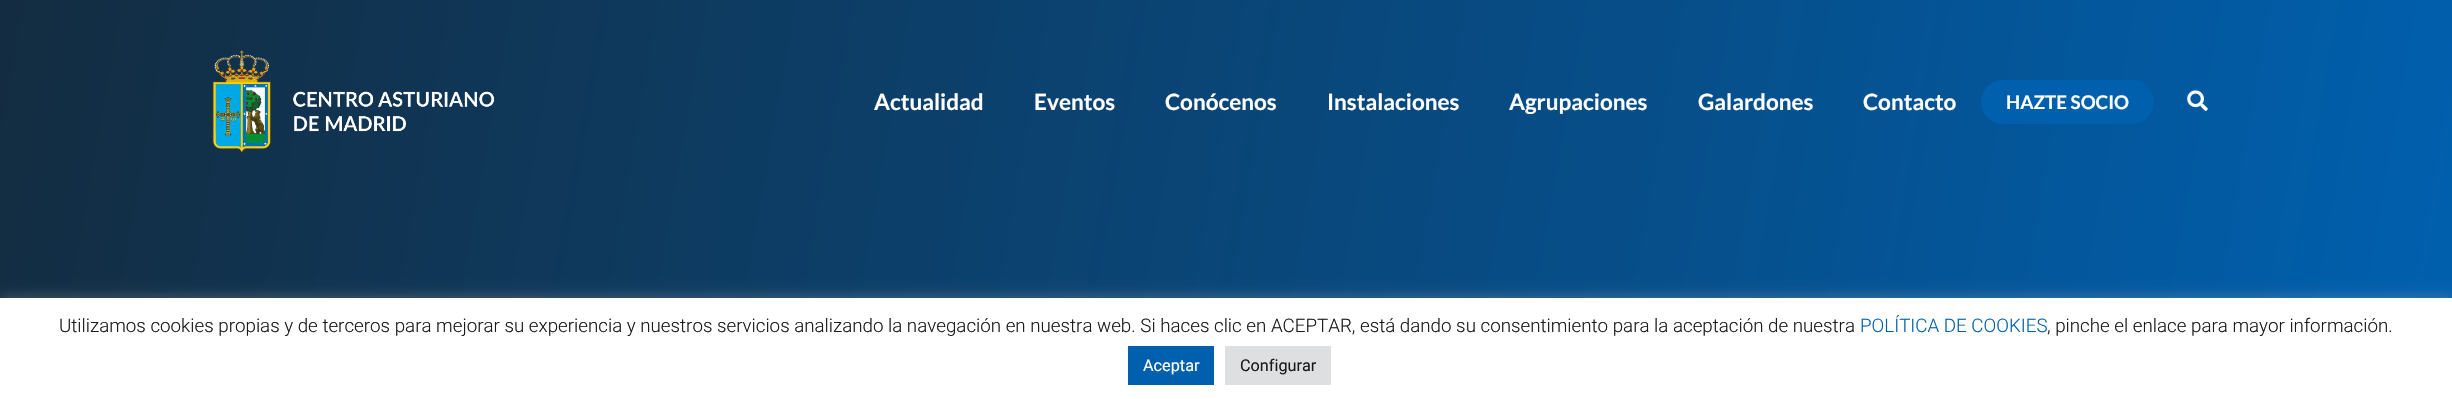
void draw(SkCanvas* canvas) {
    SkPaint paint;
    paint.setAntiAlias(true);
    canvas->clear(0xFFFFFFFF);
    {
        const SkColor colors[] = {0xFF132C41, 0xFF0060AF};
        const float stops[] = {0, 1};
        const SkPoint ends[] = {{-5, 29}, {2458, 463}};
        paint.setShader(SkGradientShader::MakeLinear(ends, colors, stops, 2, SkTileMode::kClamp));
        paint.setAlpha(255);
    }
    canvas->drawRect(SkRect::MakeXYWH(0, 0, 2452, 298), paint);
    canvas->drawImageRect(SkImages::DeferredFromEncodedData(SkData::MakeFromFileName("img1.png")), SkRect::MakeXYWH(212, 50, 283, 104), SkSamplingOptions());
    SkFont font1(fontMgr->matchFamilyStyle("Lato", SkFontStyle::Bold()), 22.5f);
    font1.setSubpixel(true);
    paint.setShader(nullptr);
    paint.setColor(0xFFFFFFFF);
    canvas->drawString("Actualidad", 874, 110, font1, paint);
    canvas->drawString("Eventos", 1034, 110, font1, paint);
    canvas->drawString("Conócenos", 1165, 110, font1, paint);
    canvas->drawString("Instalaciones", 1327, 110, font1, paint);
    canvas->drawString("Agrupaciones", 1509, 110, font1, paint);
    canvas->drawString("Galardones", 1698, 110, font1, paint);
    canvas->drawString("Contacto", 1863, 110, font1, paint);
    paint.setColor(0xFF0060AD);
    canvas->drawRoundRect(SkRect::MakeXYWH(1981, 80, 173, 44), 22, 22, paint);
    SkFont font2(fontMgr->matchFamilyStyle("Lato", SkFontStyle::Bold()), 18.75f);
    font2.setSubpixel(true);
    paint.setColor(0xFFFFFFFF);
    canvas->drawString("HAZTE SOCIO", 2006, 109, font2, paint);
    canvas->drawImageRect(SkImages::DeferredFromEncodedData(SkData::MakeFromFileName("img2.png")), SkRect::MakeXYWH(2187, 90, 21, 21), SkSamplingOptions());
    paint.setColor(0x4DACABAB);
    paint.setMaskFilter(SkMaskFilter::MakeBlur(kNormal_SkBlurStyle, 6));
    canvas->drawRect(SkRect::MakeXYWH(0, 296, 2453, 103), paint);
    paint.setMaskFilter(nullptr);
    paint.setColor(0xFFFFFFFF);
    canvas->drawRect(SkRect::MakeXYWH(0, 298, 2452, 101), paint);
    SkFont font3(fontMgr->matchFamilyStyle("Roboto", SkFontStyle(300, SkFontStyle::kNormal_Width, SkFontStyle::kUpright_Slant)), 18.75f);
    font3.setSubpixel(true);
    paint.setColor(0xFF1A1A1A);
    canvas->drawString("Utilizamos cookies propias y de terceros para mejorar su experiencia y nuestros servicios analizando la navegación en nuestra web. Si haces clic en ACEPTAR, está dando su consentimiento para la aceptación de nuestra", 59, 332, font3, paint);
    paint.setColor(0xFF0060AD);
    canvas->drawString("POLÍTICA DE COOKIES", 1860, 332, font3, paint);
    paint.setColor(0xFF1A1A1A);
    canvas->drawString(", pinche el enlace para mayor información.", 2047, 332, font3, paint);
    paint.setColor(0xFF0060AD);
    canvas->drawRect(SkRect::MakeXYWH(1128, 346, 86, 39), paint);
    SkFont font4(fontMgr->matchFamilyStyle("Roboto", SkFontStyle::Normal()), 16.25f);
    font4.setSubpixel(true);
    paint.setColor(0xFFFFFFFF);
    canvas->drawString("Aceptar", 1143, 371, font4, paint);
    paint.setColor(0xFFDEDFE0);
    canvas->drawRect(SkRect::MakeXYWH(1225, 346, 106, 39), paint);
    paint.setColor(0xFF1A1A1A);
    canvas->drawString("Configurar", 1240, 371, font4, paint);
}
